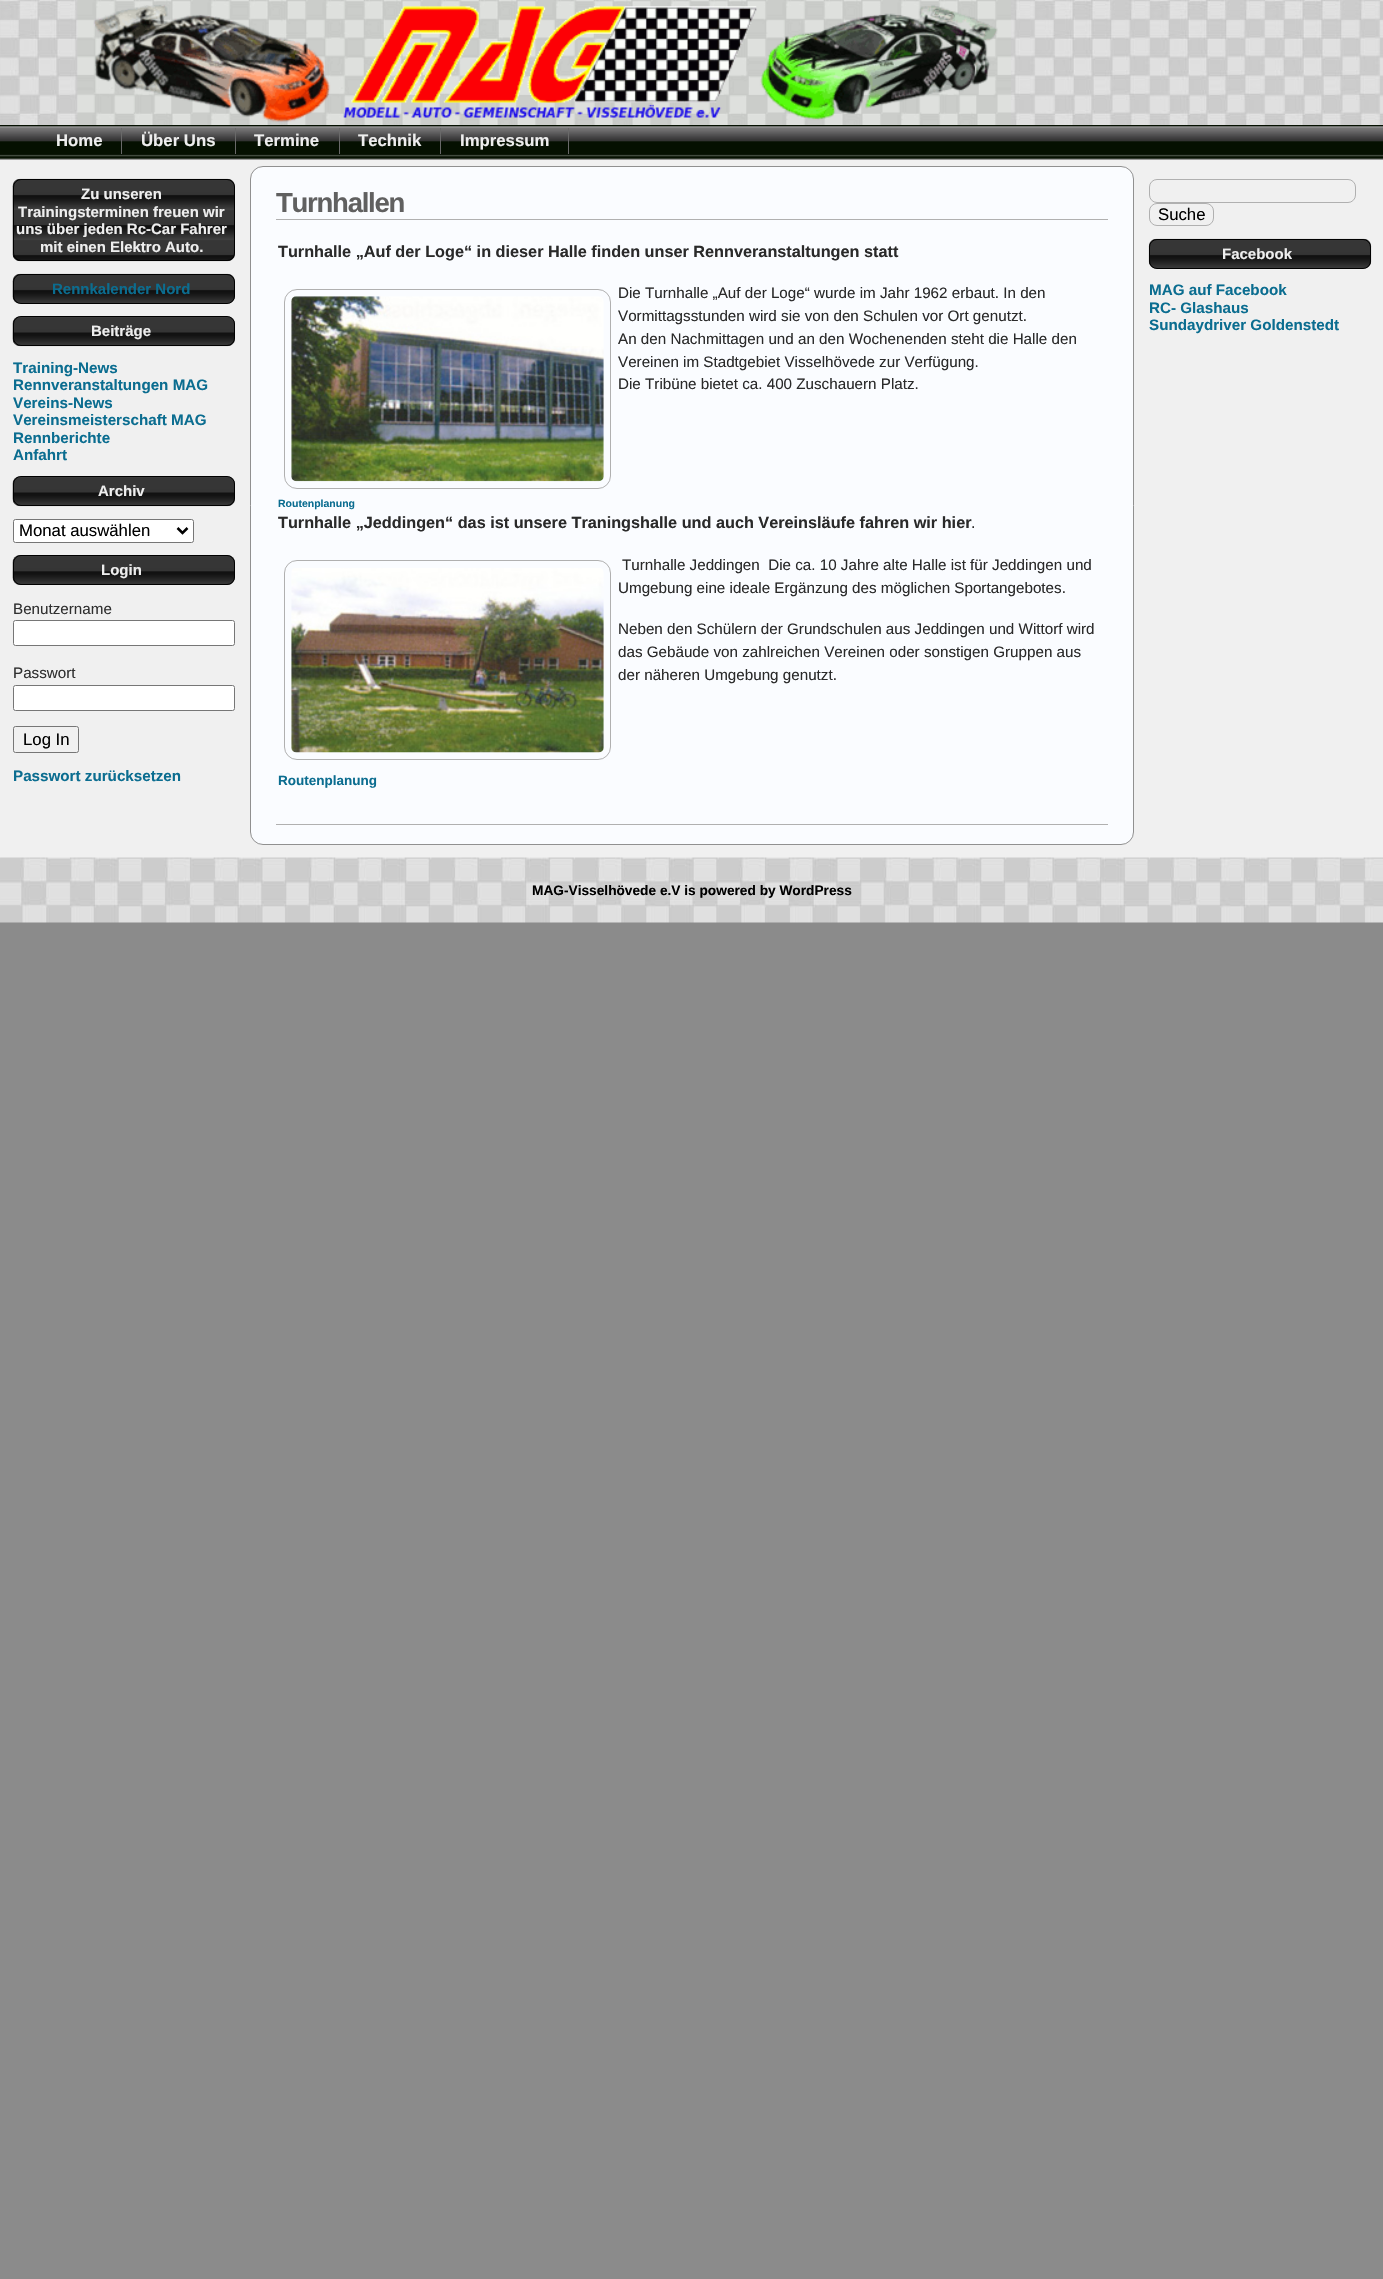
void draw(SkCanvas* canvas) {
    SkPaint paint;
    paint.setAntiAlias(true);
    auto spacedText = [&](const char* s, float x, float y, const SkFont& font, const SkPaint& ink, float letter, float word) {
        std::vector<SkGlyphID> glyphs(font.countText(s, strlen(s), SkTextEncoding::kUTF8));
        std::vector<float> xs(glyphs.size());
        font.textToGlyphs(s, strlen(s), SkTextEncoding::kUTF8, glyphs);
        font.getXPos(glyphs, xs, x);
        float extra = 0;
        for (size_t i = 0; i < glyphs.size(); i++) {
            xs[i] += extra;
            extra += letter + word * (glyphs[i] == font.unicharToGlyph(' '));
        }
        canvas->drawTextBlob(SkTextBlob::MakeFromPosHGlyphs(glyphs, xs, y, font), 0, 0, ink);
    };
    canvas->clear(0xFF8B8B8B);
    paint.setColor(0xFFF0F0F0);
    canvas->drawRect(SkRect::MakeXYWH(0, 160, 1383, 698), paint);
    canvas->drawImageRect(SkImages::DeferredFromEncodedData(SkData::MakeFromFileName("img1.png")), SkRect::MakeXYWH(0, 0, 1383, 125), SkSamplingOptions());
    canvas->drawImageRect(SkImages::DeferredFromEncodedData(SkData::MakeFromFileName("img2.png")), SkRect::MakeXYWH(77, 0, 934, 125), SkSamplingOptions());
    canvas->drawImageRect(SkImages::DeferredFromEncodedData(SkData::MakeFromFileName("img3.png")), SkRect::MakeXYWH(0, 125, 1383, 35), SkSamplingOptions());
    paint.setColor(0xFF696969);
    canvas->drawRect(SkRect::MakeXYWH(121, 128, 1, 26), paint);
    SkFont font1(fontMgr->matchFamilyStyle("Liberation Sans", SkFontStyle::Bold()), 16.75f);
    font1.setSubpixel(true);
    paint.setColor(0xFFEEEEEE);
    canvas->drawString("Home", 56, 146, font1, paint);
    paint.setColor(0xFF696969);
    canvas->drawRect(SkRect::MakeXYWH(235, 128, 1, 26), paint);
    paint.setColor(0xFFEEEEEE);
    canvas->drawString("Über Uns", 141, 146, font1, paint);
    paint.setColor(0xFF696969);
    canvas->drawRect(SkRect::MakeXYWH(339, 128, 1, 26), paint);
    paint.setColor(0xFFEEEEEE);
    canvas->drawString("Termine", 254, 146, font1, paint);
    paint.setColor(0xFF696969);
    canvas->drawRect(SkRect::MakeXYWH(440, 128, 1, 26), paint);
    paint.setColor(0xFFEEEEEE);
    canvas->drawString("Technik", 358, 146, font1, paint);
    paint.setColor(0xFF696969);
    canvas->drawRect(SkRect::MakeXYWH(568, 128, 1, 26), paint);
    paint.setColor(0xFFEEEEEE);
    canvas->drawString("Impressum", 460, 146, font1, paint);
    canvas->drawImageRect(SkImages::DeferredFromEncodedData(SkData::MakeFromFileName("img4.png")), SkRect::MakeXYWH(12, 178, 223, 84), SkSamplingOptions());
    paint.setStyle(SkPaint::kStroke_Style);
    paint.setStrokeWidth(1);
    paint.setColor(0xFF000000);
    canvas->drawRoundRect(SkRect::MakeXYWH(13.5f, 179.5f, 221, 81), 7.5f, 7.5f, paint);
    SkFont font2(fontMgr->matchFamilyStyle("Liberation Sans", SkFontStyle::Bold()), 15);
    font2.setSubpixel(true);
    paint.setStyle(SkPaint::kFill_Style);
    paint.setColor(0xFFEEEEEE);
    canvas->drawString("Zu unseren", 81, 199, font2, paint);
    canvas->drawString("Trainingsterminen freuen wir", 18, 217, font2, paint);
    canvas->drawString("uns über jeden Rc-Car Fahrer", 16, 234, font2, paint);
    canvas->drawString("mit einen Elektro Auto.", 40, 252, font2, paint);
    canvas->drawImageRect(SkImages::DeferredFromEncodedData(SkData::MakeFromFileName("img5.png")), SkRect::MakeXYWH(12, 273, 223, 31), SkSamplingOptions());
    paint.setStyle(SkPaint::kStroke_Style);
    paint.setColor(0xFF000000);
    canvas->drawRoundRect(SkRect::MakeXYWH(13.5f, 274.5f, 221, 29), 7.5f, 7.5f, paint);
    paint.setStyle(SkPaint::kFill_Style);
    paint.setColor(0xFF0B6D90);
    canvas->drawString("Rennkalender Nord", 52, 294, font2, paint);
    canvas->drawImageRect(SkImages::DeferredFromEncodedData(SkData::MakeFromFileName("img6.png")), SkRect::MakeXYWH(12, 316, 223, 31), SkSamplingOptions());
    paint.setStyle(SkPaint::kStroke_Style);
    paint.setColor(0xFF000000);
    canvas->drawRoundRect(SkRect::MakeXYWH(13.5f, 316.5f, 221, 29), 7.5f, 7.5f, paint);
    paint.setStyle(SkPaint::kFill_Style);
    paint.setColor(0xFFEEEEEE);
    canvas->drawString("Beiträge", 91, 336, font2, paint);
    SkFont font3(fontMgr->matchFamilyStyle("Liberation Sans", SkFontStyle::Bold()), 15.2f);
    font3.setSubpixel(true);
    paint.setColor(0xFF0B6D90);
    canvas->drawString("Training-News", 13, 373, font3, paint);
    canvas->drawString("Rennveranstaltungen MAG", 13, 390, font3, paint);
    canvas->drawString("Vereins-News", 13, 408, font3, paint);
    canvas->drawString("Vereinsmeisterschaft MAG", 13, 425, font3, paint);
    canvas->drawString("Rennberichte", 13, 443, font3, paint);
    canvas->drawString("Anfahrt", 13, 460, font3, paint);
    canvas->drawImageRect(SkImages::DeferredFromEncodedData(SkData::MakeFromFileName("img6.png")), SkRect::MakeXYWH(12, 476, 223, 31), SkSamplingOptions());
    paint.setStyle(SkPaint::kStroke_Style);
    paint.setColor(0xFF000000);
    canvas->drawRoundRect(SkRect::MakeXYWH(13.5f, 476.5f, 221, 29), 7.5f, 7.5f, paint);
    paint.setStyle(SkPaint::kFill_Style);
    paint.setColor(0xFFEEEEEE);
    canvas->drawString("Archiv", 98, 496, font2, paint);
    paint.setColor(0xFFFFFFFF);
    canvas->drawRoundRect(SkRect::MakeXYWH(13.5f, 519.5f, 180, 23), 2, 2, paint);
    paint.setStyle(SkPaint::kStroke_Style);
    paint.setColor(0xFF767676);
    canvas->drawRoundRect(SkRect::MakeXYWH(13.5f, 519.5f, 180, 23), 2, 2, paint);
    paint.setStrokeWidth(2.5f);
    paint.setColor(0xFF000000);
    canvas->drawPath(SkPathBuilder().moveTo(177.5f, 528).lineTo(182.5f, 533).lineTo(187.5f, 528).detach(), paint);
    SkFont font4(fontMgr->matchFamilyStyle("Liberation Sans", SkFontStyle::Normal()), 16.75f);
    font4.setSubpixel(true);
    paint.setStyle(SkPaint::kFill_Style);
    canvas->drawString("Monat auswählen", 19, 536, font4, paint);
    canvas->drawImageRect(SkImages::DeferredFromEncodedData(SkData::MakeFromFileName("img7.png")), SkRect::MakeXYWH(12, 555, 223, 30), SkSamplingOptions());
    paint.setStyle(SkPaint::kStroke_Style);
    paint.setStrokeWidth(1);
    canvas->drawRoundRect(SkRect::MakeXYWH(13.5f, 555.5f, 221, 29), 7.5f, 7.5f, paint);
    paint.setStyle(SkPaint::kFill_Style);
    paint.setColor(0xFFEEEEEE);
    canvas->drawString("Login", 101, 575, font2, paint);
    SkFont font5(fontMgr->matchFamilyStyle("Liberation Sans", SkFontStyle::Normal()), 15.2f);
    font5.setSubpixel(true);
    paint.setColor(0xFF303030);
    canvas->drawString("Benutzername", 13, 614, font5, paint);
    paint.setColor(0xFFFFFFFF);
    canvas->drawRoundRect(SkRect::MakeXYWH(13.5f, 620.5f, 221, 25), 2, 2, paint);
    paint.setStyle(SkPaint::kStroke_Style);
    paint.setColor(0xFF767676);
    canvas->drawRoundRect(SkRect::MakeXYWH(13.5f, 620.5f, 221, 25), 2, 2, paint);
    paint.setStyle(SkPaint::kFill_Style);
    paint.setColor(0xFF303030);
    canvas->drawString("Passwort", 13, 678, font5, paint);
    paint.setColor(0xFFFFFFFF);
    canvas->drawRoundRect(SkRect::MakeXYWH(13.5f, 685.5f, 221, 25), 2, 2, paint);
    paint.setStyle(SkPaint::kStroke_Style);
    paint.setColor(0xFF767676);
    canvas->drawRoundRect(SkRect::MakeXYWH(13.5f, 685.5f, 221, 25), 2, 2, paint);
    canvas->drawRoundRect(SkRect::MakeXYWH(13.5f, 726.5f, 65, 26), 2, 2, paint);
    paint.setStyle(SkPaint::kFill_Style);
    paint.setColor(0xFF000000);
    canvas->drawString("Log In", 23, 745, font4, paint);
    paint.setColor(0xFF0B6D90);
    canvas->drawString("Passwort zurücksetzen", 13, 781, font3, paint);
    paint.setColor(0xFFFAFCFF);
    canvas->drawRoundRect(SkRect::MakeXYWH(250.5f, 166.5f, 883, 678), 12.5f, 12.5f, paint);
    paint.setStyle(SkPaint::kStroke_Style);
    paint.setColor(0xFF909090);
    canvas->drawRoundRect(SkRect::MakeXYWH(250.5f, 166.5f, 883, 678), 12.5f, 12.5f, paint);
    paint.setStyle(SkPaint::kFill_Style);
    paint.setColor(0xFFB0B0B0);
    canvas->drawRect(SkRect::MakeXYWH(276, 824, 832, 1), paint);
    canvas->drawRect(SkRect::MakeXYWH(276, 219, 832, 1), paint);
    SkFont font6(fontMgr->matchFamilyStyle("Liberation Sans", SkFontStyle::Bold()), 27.5f);
    font6.setSubpixel(true);
    paint.setColor(0xFF606060);
    spacedText("Turnhallen", 276, 212, font6, paint, -1.25f, 0);
    SkFont font7(fontMgr->matchFamilyStyle("Liberation Sans", SkFontStyle::Bold()), 16.25f);
    font7.setSubpixel(true);
    paint.setColor(0xFF2A2A2A);
    canvas->drawString("Turnhalle „Auf der Loge“ in dieser Halle finden unser Rennveranstaltungen statt", 278, 257, font7, paint);
    paint.setStyle(SkPaint::kStroke_Style);
    paint.setColor(0xFFB0B0B0);
    canvas->drawRoundRect(SkRect::MakeXYWH(284.5f, 289.5f, 326, 199), 12.5f, 12.5f, paint);
    canvas->drawImageRect(SkImages::DeferredFromEncodedData(SkData::MakeFromFileName("img8.png")), SkRect::MakeXYWH(291, 296, 313, 186), SkSamplingOptions());
    paint.setStyle(SkPaint::kFill_Style);
    paint.setColor(0xFF2A2A2A);
    canvas->drawString("Die Turnhalle „Auf der Loge“ wurde im Jahr 1962 erbaut. In den", 618, 298, font5, paint);
    canvas->drawString("Vormittagsstunden wird sie von den Schulen vor Ort genutzt.", 618, 321, font5, paint);
    canvas->drawString("An den Nachmittagen und an den Wochenenden steht die Halle den", 618, 344, font5, paint);
    canvas->drawString("Vereinen im Stadtgebiet Visselhövede zur Verfügung.", 618, 367, font5, paint);
    canvas->drawString("Die Tribüne bietet ca. 400 Zuschauern Platz.", 618, 389, font5, paint);
    SkFont font8(fontMgr->matchFamilyStyle("Liberation Sans", SkFontStyle::Bold()), 10.5f);
    font8.setSubpixel(true);
    paint.setColor(0xFF0B6D90);
    canvas->drawString("Routenplanung", 278, 507, font8, paint);
    paint.setColor(0xFF2A2A2A);
    canvas->drawString("Turnhalle „Jeddingen“ das ist unsere Traningshalle und auch Vereinsläufe fahren wir hier", 278, 528, font7, paint);
    SkFont font9(fontMgr->matchFamilyStyle("Liberation Sans", SkFontStyle::Normal()), 16.25f);
    font9.setSubpixel(true);
    canvas->drawString(".", 971, 528, font9, paint);
    paint.setStyle(SkPaint::kStroke_Style);
    paint.setColor(0xFFB0B0B0);
    canvas->drawRoundRect(SkRect::MakeXYWH(284.5f, 560.5f, 326, 199), 12.5f, 12.5f, paint);
    canvas->drawImageRect(SkImages::DeferredFromEncodedData(SkData::MakeFromFileName("img9.png")), SkRect::MakeXYWH(291, 568, 313, 185), SkSamplingOptions());
    paint.setStyle(SkPaint::kFill_Style);
    paint.setColor(0xFF2A2A2A);
    canvas->drawString("Turnhalle Jeddingen  Die ca. 10 Jahre alte Halle ist für Jeddingen und", 622, 570, font5, paint);
    canvas->drawString("Umgebung eine ideale Ergänzung des möglichen Sportangebotes.", 618, 593, font5, paint);
    canvas->drawString("Neben den Schülern der Grundschulen aus Jeddingen und Wittorf wird", 618, 634, font5, paint);
    canvas->drawString("das Gebäude von zahlreichen Vereinen oder sonstigen Gruppen aus", 618, 657, font5, paint);
    canvas->drawString("der näheren Umgebung genutzt.", 618, 680, font5, paint);
    SkFont font10(fontMgr->matchFamilyStyle("Liberation Sans", SkFontStyle::Bold()), 13.5f);
    font10.setSubpixel(true);
    paint.setColor(0xFF0B6D90);
    canvas->drawString("Routenplanung", 278, 785, font10, paint);
    paint.setStyle(SkPaint::kStroke_Style);
    paint.setColor(0xFFB0B0B0);
    canvas->drawRoundRect(SkRect::MakeXYWH(1149.5f, 179.5f, 206, 23), 7.5f, 7.5f, paint);
    canvas->drawRoundRect(SkRect::MakeXYWH(1149.5f, 203.5f, 64, 22), 7.5f, 7.5f, paint);
    paint.setStyle(SkPaint::kFill_Style);
    paint.setColor(0xFF000000);
    canvas->drawString("Suche", 1158, 220, font4, paint);
    canvas->drawImageRect(SkImages::DeferredFromEncodedData(SkData::MakeFromFileName("img10.png")), SkRect::MakeXYWH(1148, 238, 224, 31), SkSamplingOptions());
    paint.setStyle(SkPaint::kStroke_Style);
    canvas->drawRoundRect(SkRect::MakeXYWH(1149.5f, 239.5f, 221, 29), 7.5f, 7.5f, paint);
    paint.setStyle(SkPaint::kFill_Style);
    paint.setColor(0xFFEEEEEE);
    canvas->drawString("Facebook", 1222, 259, font2, paint);
    paint.setColor(0xFF0B6D90);
    canvas->drawString("MAG auf Facebook", 1149, 295, font3, paint);
    canvas->drawString("RC- Glashaus", 1149, 313, font3, paint);
    canvas->drawString("Sundaydriver Goldenstedt", 1149, 330, font3, paint);
    canvas->drawImageRect(SkImages::DeferredFromEncodedData(SkData::MakeFromFileName("img11.png")), SkRect::MakeXYWH(0, 857, 1383, 66), SkSamplingOptions());
    SkFont font11(fontMgr->matchFamilyStyle("Liberation Sans", SkFontStyle::Bold()), 13.7f);
    font11.setSubpixel(true);
    paint.setColor(0xFF000000);
    canvas->drawString("MAG-Visselhövede e.V is powered by WordPress", 532, 895, font11, paint);
}
